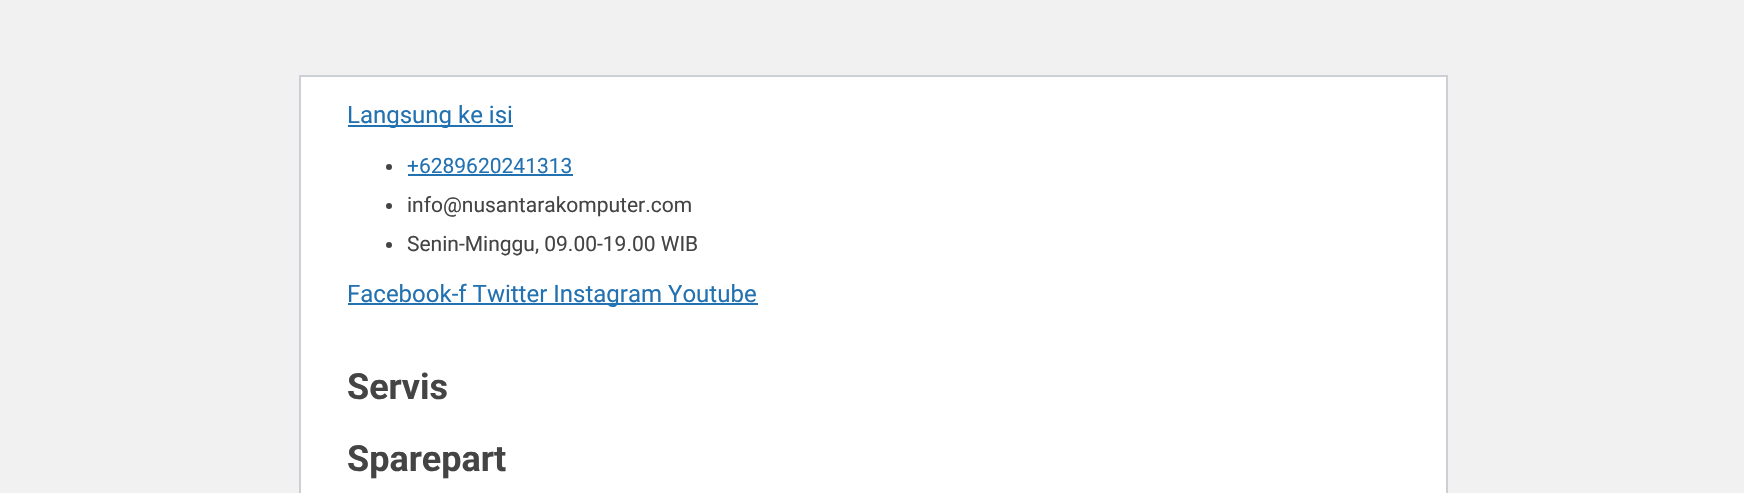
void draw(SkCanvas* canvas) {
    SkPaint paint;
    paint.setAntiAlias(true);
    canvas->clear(0xFFF1F1F1);
    paint.setColor(0xFFFFFFFF);
    canvas->drawRect(SkRect::MakeXYWH(300, 76, 1147, 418), paint);
    paint.setStyle(SkPaint::kStroke_Style);
    paint.setStrokeWidth(2);
    paint.setColor(0xFFCCD0D4);
    canvas->drawRect(SkRect::MakeXYWH(300, 76, 1147, 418), paint);
    paint.setStyle(SkPaint::kFill_Style);
    paint.setColor(0xFF2271B1);
    canvas->drawRect(SkRect::MakeXYWH(348, 125, 165, 2), paint);
    SkFont font1(fontMgr->matchFamilyStyle("Roboto", SkFontStyle::Normal()), 24);
    font1.setSubpixel(true);
    canvas->drawString("Langsung ke isi", 347, 123, font1, paint);
    paint.setColor(0xFF444444);
    canvas->drawCircle(389, 167, 3, paint);
    SkFont font2(fontMgr->matchFamilyStyle("Roboto", SkFontStyle::Normal()), 21);
    font2.setSubpixel(true);
    paint.setColor(0xFF2271B1);
    canvas->drawString("+6289620241313", 407, 173, font2, paint);
    canvas->drawRect(SkRect::MakeXYWH(408, 174, 165, 2), paint);
    paint.setColor(0xFF444444);
    canvas->drawCircle(389, 206, 3, paint);
    canvas->drawString("info@nusantarakomputer.com", 407, 212, font2, paint);
    canvas->drawCircle(389, 245, 3, paint);
    canvas->drawString("Senin-Minggu, 09.00-19.00 WIB", 407, 251, font2, paint);
    paint.setColor(0xFF2271B1);
    canvas->drawRect(SkRect::MakeXYWH(348, 303, 410, 2), paint);
    canvas->drawString("Facebook-f Twitter Instagram Youtube", 347, 302, font1, paint);
    SkFont font3(fontMgr->matchFamilyStyle("Roboto", SkFontStyle::Bold()), 36);
    font3.setSubpixel(true);
    paint.setColor(0xFF444444);
    canvas->drawString("Servis", 347, 399, font3, paint);
    canvas->drawString("Sparepart", 347, 471, font3, paint);
}
